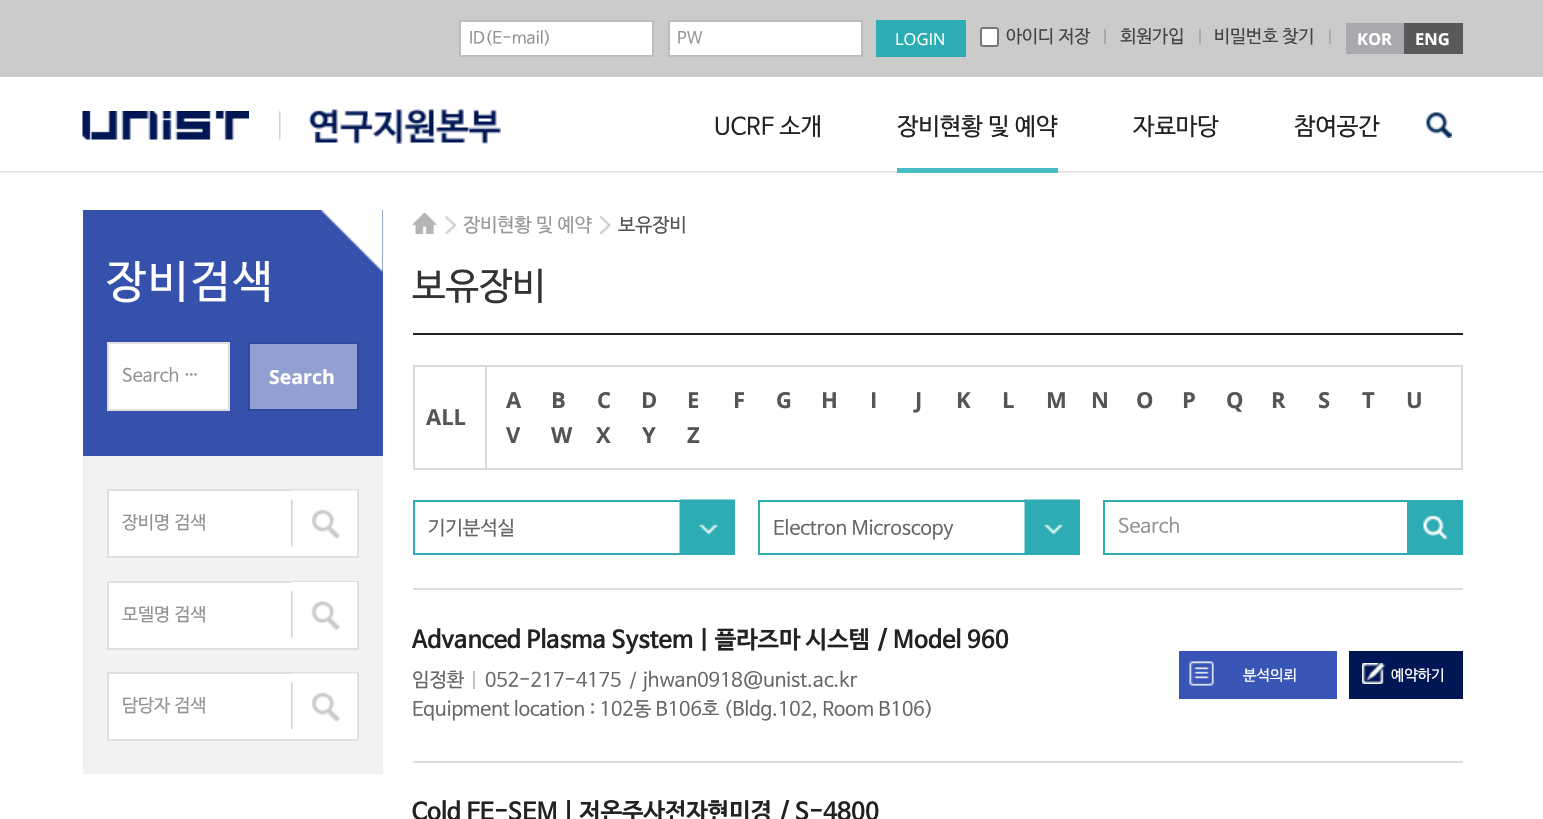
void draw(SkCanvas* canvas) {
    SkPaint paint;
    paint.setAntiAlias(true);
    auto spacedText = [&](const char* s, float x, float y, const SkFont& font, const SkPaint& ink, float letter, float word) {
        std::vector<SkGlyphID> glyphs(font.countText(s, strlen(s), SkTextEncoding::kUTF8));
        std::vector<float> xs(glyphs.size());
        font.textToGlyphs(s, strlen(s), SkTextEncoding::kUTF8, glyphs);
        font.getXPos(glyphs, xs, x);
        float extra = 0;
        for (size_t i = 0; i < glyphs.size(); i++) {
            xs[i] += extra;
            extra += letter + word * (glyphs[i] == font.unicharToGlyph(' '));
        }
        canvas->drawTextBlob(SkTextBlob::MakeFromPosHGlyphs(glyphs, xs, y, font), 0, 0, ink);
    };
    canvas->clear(0xFFFFFFFF);
    canvas->drawImageRect(SkImages::DeferredFromEncodedData(SkData::MakeFromFileName("img1.png")), SkRect::MakeXYWH(0, 171, 1543, 2), SkSamplingOptions());
    paint.setColor(0xFFCBCBCB);
    canvas->drawRect(SkRect::MakeXYWH(0, 0, 1543, 77), paint);
    paint.setColor(0xFFFFFFFF);
    canvas->drawRect(SkRect::MakeXYWH(460, 21, 193, 35), paint);
    paint.setStyle(SkPaint::kStroke_Style);
    paint.setStrokeWidth(2);
    paint.setColor(0xFFBCBCBC);
    canvas->drawRect(SkRect::MakeXYWH(460, 21, 193, 35), paint);
    SkFont font1(fontMgr->matchFamilyStyle("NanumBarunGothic", SkFontStyle::Normal()), 16.5f);
    font1.setSubpixel(true);
    paint.setStyle(SkPaint::kFill_Style);
    paint.setColor(0xFF939393);
    canvas->drawString("ID(E-mail)", 469, 43, font1, paint);
    paint.setColor(0xFFFFFFFF);
    canvas->drawRect(SkRect::MakeXYWH(669, 21, 193, 35), paint);
    paint.setStyle(SkPaint::kStroke_Style);
    paint.setColor(0xFFBCBCBC);
    canvas->drawRect(SkRect::MakeXYWH(669, 21, 193, 35), paint);
    paint.setStyle(SkPaint::kFill_Style);
    paint.setColor(0xFF939393);
    canvas->drawString("PW", 677, 43, font1, paint);
    paint.setColor(0xFF2EACB4);
    canvas->drawRect(SkRect::MakeXYWH(876, 20, 90, 37), paint);
    SkFont font2(fontMgr->matchFamilyStyle("Open Sans", SkFontStyle::Normal()), 16.5f);
    font2.setSubpixel(true);
    paint.setColor(0xFFFFFFFF);
    canvas->drawString("LOGIN", 895, 45, font2, paint);
    canvas->drawRoundRect(SkRect::MakeXYWH(981, 28, 17, 18), 2, 2, paint);
    paint.setStyle(SkPaint::kStroke_Style);
    paint.setColor(0xFF767676);
    canvas->drawRoundRect(SkRect::MakeXYWH(981, 28, 17, 18), 2, 2, paint);
    SkFont font3(fontMgr->matchFamilyStyle("NanumBarunGothic", SkFontStyle::Normal()), 18);
    font3.setSubpixel(true);
    paint.setStyle(SkPaint::kFill_Style);
    paint.setColor(0xFF444444);
    canvas->drawString("아이디 저장", 1006, 42, font3, paint);
    paint.setColor(0xFFAAAAAA);
    canvas->drawRect(SkRect::MakeXYWH(1104, 29, 2, 15), paint);
    paint.setColor(0xFF444444);
    canvas->drawString("회원가입", 1120, 42, font3, paint);
    paint.setColor(0xFFAAAAAA);
    canvas->drawRect(SkRect::MakeXYWH(1199, 29, 2, 15), paint);
    paint.setColor(0xFF444444);
    canvas->drawString("비밀번호 찾기", 1214, 42, font3, paint);
    paint.setColor(0xFFAAAAAA);
    canvas->drawRect(SkRect::MakeXYWH(1329, 29, 2, 15), paint);
    paint.setColor(0xFFA7A9AC);
    canvas->drawRect(SkRect::MakeXYWH(1346, 23, 58, 31), paint);
    SkFont font4(fontMgr->matchFamilyStyle("Open Sans", SkFontStyle::Bold()), 16.5f);
    font4.setSubpixel(true);
    paint.setColor(0xFFFFFFFF);
    canvas->drawString("KOR", 1357, 45, font4, paint);
    paint.setColor(0xFF57595B);
    canvas->drawRect(SkRect::MakeXYWH(1404, 23, 59, 31), paint);
    paint.setColor(0xFFFFFFFF);
    canvas->drawString("ENG", 1415, 45, font4, paint);
    canvas->drawImageRect(SkImages::DeferredFromEncodedData(SkData::MakeFromFileName("img2.png")), SkRect::MakeXYWH(82, 111, 167, 29), SkSamplingOptions());
    canvas->drawImageRect(SkImages::DeferredFromEncodedData(SkData::MakeFromFileName("img3.png")), SkRect::MakeXYWH(279, 109, 222, 35), SkSamplingOptions());
    SkFont font5(fontMgr->matchFamilyStyle("NanumBarunGothic", SkFontStyle::Normal()), 24);
    font5.setSubpixel(true);
    paint.setColor(0xFF222222);
    canvas->drawString("UCRF 소개", 714, 134, font5, paint);
    paint.setColor(0xFF47BCC3);
    canvas->drawRect(SkRect::MakeXYWH(897, 168, 161, 5), paint);
    paint.setColor(0xFF222222);
    canvas->drawString("장비현황 및 예약", 897, 134, font5, paint);
    canvas->drawString("자료마당", 1133, 134, font5, paint);
    canvas->drawString("참여공간", 1294, 134, font5, paint);
    canvas->drawImageRect(SkImages::DeferredFromEncodedData(SkData::MakeFromFileName("img4.png")), SkRect::MakeXYWH(1426, 112, 26, 26), SkSamplingOptions());
    paint.setColor(0xFF3651AB);
    canvas->drawRect(SkRect::MakeXYWH(83, 210, 300, 246), paint);
    canvas->drawImageRect(SkImages::DeferredFromEncodedData(SkData::MakeFromFileName("img5.png")), SkRect::MakeXYWH(321, 210, 62, 62), SkSamplingOptions());
    SkFont font6(fontMgr->matchFamilyStyle("NanumBarunGothic", SkFontStyle::Normal()), 45);
    font6.setSubpixel(true);
    paint.setColor(0xFFFFFFFF);
    spacedText("장비검색", 106, 296, font6, paint, 2, 0);
    canvas->drawRect(SkRect::MakeXYWH(108, 343, 121, 67), paint);
    paint.setStyle(SkPaint::kStroke_Style);
    paint.setColor(0xFFDFDFDF);
    canvas->drawRect(SkRect::MakeXYWH(108, 343, 121, 67), paint);
    paint.setStyle(SkPaint::kFill_Style);
    paint.setColor(0xFF939393);
    canvas->drawString("Search …", 122, 381, font3, paint);
    paint.setColor(0xFF919FD1);
    canvas->drawRect(SkRect::MakeXYWH(249, 343, 109, 67), paint);
    paint.setStyle(SkPaint::kStroke_Style);
    paint.setColor(0xFF30499F);
    canvas->drawRect(SkRect::MakeXYWH(249, 343, 109, 67), paint);
    SkFont font7(fontMgr->matchFamilyStyle("Open Sans", SkFontStyle::Bold()), 19.5f);
    font7.setSubpixel(true);
    paint.setStyle(SkPaint::kFill_Style);
    paint.setColor(0xFFFFFFFF);
    canvas->drawString("Search", 269, 384, font7, paint);
    paint.setColor(0xFFF2F2F2);
    canvas->drawRect(SkRect::MakeXYWH(83, 456, 300, 318), paint);
    paint.setColor(0xFFFFFFFF);
    canvas->drawRect(SkRect::MakeXYWH(108, 490, 250, 67), paint);
    paint.setStyle(SkPaint::kStroke_Style);
    paint.setColor(0xFFDFDFDF);
    canvas->drawRect(SkRect::MakeXYWH(108, 490, 250, 67), paint);
    paint.setStyle(SkPaint::kFill_Style);
    paint.setColor(0xFF939393);
    canvas->drawString("장비명 검색", 122, 528, font3, paint);
    canvas->drawImageRect(SkImages::DeferredFromEncodedData(SkData::MakeFromFileName("img6.png")), SkRect::MakeXYWH(291, 490, 66, 57), SkSamplingOptions());
    paint.setColor(0xFFFFFFFF);
    canvas->drawRect(SkRect::MakeXYWH(108, 582, 250, 67), paint);
    paint.setStyle(SkPaint::kStroke_Style);
    paint.setColor(0xFFDFDFDF);
    canvas->drawRect(SkRect::MakeXYWH(108, 582, 250, 67), paint);
    paint.setStyle(SkPaint::kFill_Style);
    paint.setColor(0xFF939393);
    canvas->drawString("모델명 검색", 122, 620, font3, paint);
    canvas->drawImageRect(SkImages::DeferredFromEncodedData(SkData::MakeFromFileName("img7.png")), SkRect::MakeXYWH(291, 582, 66, 56), SkSamplingOptions());
    paint.setColor(0xFFFFFFFF);
    canvas->drawRect(SkRect::MakeXYWH(108, 673, 250, 67), paint);
    paint.setStyle(SkPaint::kStroke_Style);
    paint.setColor(0xFFDFDFDF);
    canvas->drawRect(SkRect::MakeXYWH(108, 673, 250, 67), paint);
    paint.setStyle(SkPaint::kFill_Style);
    paint.setColor(0xFF939393);
    canvas->drawString("담당자 검색", 122, 711, font3, paint);
    canvas->drawImageRect(SkImages::DeferredFromEncodedData(SkData::MakeFromFileName("img6.png")), SkRect::MakeXYWH(291, 673, 66, 57), SkSamplingOptions());
    canvas->drawImageRect(SkImages::DeferredFromEncodedData(SkData::MakeFromFileName("img8.png")), SkRect::MakeXYWH(412, 213, 25, 21), SkSamplingOptions());
    canvas->drawImageRect(SkImages::DeferredFromEncodedData(SkData::MakeFromFileName("img9.png")), SkRect::MakeXYWH(445, 216, 11, 18), SkSamplingOptions());
    SkFont font8(fontMgr->matchFamilyStyle("NanumBarunGothic", SkFontStyle::Normal()), 19.25f);
    font8.setSubpixel(true);
    paint.setColor(0xFF999999);
    canvas->drawString("장비현황 및 예약", 463, 231, font8, paint);
    canvas->drawImageRect(SkImages::DeferredFromEncodedData(SkData::MakeFromFileName("img10.png")), SkRect::MakeXYWH(600, 216, 11, 18), SkSamplingOptions());
    paint.setColor(0xFF555555);
    canvas->drawString("보유장비", 618, 231, font8, paint);
    paint.setColor(0xFF222222);
    canvas->drawRect(SkRect::MakeXYWH(413, 333, 1050, 2), paint);
    SkFont font9(fontMgr->matchFamilyStyle("NanumBarunGothic", SkFontStyle::Normal()), 37.5f);
    font9.setSubpixel(true);
    paint.setColor(0xFF333333);
    canvas->drawString("보유장비", 412, 298, font9, paint);
    paint.setStyle(SkPaint::kStroke_Style);
    paint.setColor(0xFFDADADA);
    canvas->drawRect(SkRect::MakeXYWH(414, 366, 1048, 103), paint);
    SkFont font10(fontMgr->matchFamilyStyle("Open Sans", SkFontStyle::Bold()), 22);
    font10.setSubpixel(true);
    paint.setStyle(SkPaint::kFill_Style);
    paint.setColor(0xFF555555);
    canvas->drawString("A", 506, 408, font10, paint);
    canvas->drawString("B", 551, 408, font10, paint);
    canvas->drawString("C", 597, 408, font10, paint);
    canvas->drawString("D", 641, 408, font10, paint);
    canvas->drawString("E", 687, 408, font10, paint);
    canvas->drawString("F", 733, 408, font10, paint);
    canvas->drawString("G", 776, 408, font10, paint);
    canvas->drawString("H", 821, 408, font10, paint);
    canvas->drawString("I", 870, 408, font10, paint);
    canvas->drawString("J", 915, 408, font10, paint);
    canvas->drawString("K", 956, 408, font10, paint);
    canvas->drawString("L", 1002, 408, font10, paint);
    canvas->drawString("M", 1046, 408, font10, paint);
    canvas->drawString("N", 1091, 408, font10, paint);
    canvas->drawString("O", 1136, 408, font10, paint);
    canvas->drawString("P", 1182, 408, font10, paint);
    canvas->drawString("Q", 1226, 408, font10, paint);
    canvas->drawString("R", 1271, 408, font10, paint);
    canvas->drawString("S", 1318, 408, font10, paint);
    canvas->drawString("T", 1362, 408, font10, paint);
    canvas->drawString("U", 1406, 408, font10, paint);
    paint.setColor(0xFFDADADA);
    canvas->drawRect(SkRect::MakeXYWH(485, 366, 2, 102), paint);
    paint.setColor(0xFF555555);
    canvas->drawString("ALL", 426, 425, font10, paint);
    canvas->drawString("V", 506, 443, font10, paint);
    canvas->drawString("W", 551, 443, font10, paint);
    canvas->drawString("X", 596, 443, font10, paint);
    canvas->drawString("Y", 642, 443, font10, paint);
    canvas->drawString("Z", 687, 443, font10, paint);
    canvas->drawImageRect(SkImages::DeferredFromEncodedData(SkData::MakeFromFileName("img11.png")), SkRect::MakeXYWH(679, 499, 56, 54), SkSamplingOptions());
    paint.setStyle(SkPaint::kStroke_Style);
    paint.setColor(0xFF2EACB4);
    canvas->drawRect(SkRect::MakeXYWH(414, 501, 320, 53), paint);
    SkFont font11(fontMgr->matchFamilyStyle("NanumBarunGothic", SkFontStyle::Normal()), 19.5f);
    font11.setSubpixel(true);
    paint.setStyle(SkPaint::kFill_Style);
    paint.setColor(0xFF666666);
    canvas->drawString("기기분석실", 428, 534, font11, paint);
    canvas->drawImageRect(SkImages::DeferredFromEncodedData(SkData::MakeFromFileName("img11.png")), SkRect::MakeXYWH(1024, 499, 56, 54), SkSamplingOptions());
    paint.setStyle(SkPaint::kStroke_Style);
    paint.setColor(0xFF2EACB4);
    canvas->drawRect(SkRect::MakeXYWH(759, 501, 320, 53), paint);
    paint.setStyle(SkPaint::kFill_Style);
    paint.setColor(0xFF666666);
    canvas->drawString("Electron Microscopy", 773, 534, font11, paint);
    paint.setStyle(SkPaint::kStroke_Style);
    paint.setColor(0xFF2EACB4);
    canvas->drawRect(SkRect::MakeXYWH(1104, 501, 316, 53), paint);
    paint.setStyle(SkPaint::kFill_Style);
    paint.setColor(0xFF939393);
    canvas->drawString("Search", 1118, 532, font11, paint);
    paint.setColor(0xFF2EACB4);
    canvas->drawRect(SkRect::MakeXYWH(1407, 500, 56, 55), paint);
    canvas->drawImageRect(SkImages::DeferredFromEncodedData(SkData::MakeFromFileName("img12.png")), SkRect::MakeXYWH(1423, 515, 25, 25), SkSamplingOptions());
    paint.setColor(0xFFDDDDDD);
    canvas->drawRect(SkRect::MakeXYWH(413, 588, 1050, 2), paint);
    canvas->drawRect(SkRect::MakeXYWH(413, 761, 1050, 2), paint);
    SkFont font12(fontMgr->matchFamilyStyle("NanumBarunGothic", SkFontStyle::Bold()), 24);
    font12.setSubpixel(true);
    paint.setColor(0xFF222222);
    canvas->drawString("Advanced Plasma System | 플라즈마 시스템", 412, 647, font12, paint);
    canvas->drawString("/ Model 960", 877, 647, font12, paint);
    paint.setColor(0xFF666666);
    canvas->drawString("임정환", 412, 686, font11, paint);
    paint.setColor(0xFFC2C2C2);
    canvas->drawRect(SkRect::MakeXYWH(473, 671, 2, 18), paint);
    paint.setColor(0xFF666666);
    canvas->drawString("052-217-4175", 485, 686, font11, paint);
    canvas->drawString("/", 629, 686, font3, paint);
    canvas->drawString("jhwan0918@unist.ac.kr", 642, 686, font11, paint);
    canvas->drawString("Equipment location : 102동 B106호 (Bldg.102, Room B106)", 412, 715, font11, paint);
    paint.setColor(0xFF3956B6);
    canvas->drawRect(SkRect::MakeXYWH(1179, 651, 158, 48), paint);
    canvas->drawImageRect(SkImages::DeferredFromEncodedData(SkData::MakeFromFileName("img13.png")), SkRect::MakeXYWH(1189, 661, 25, 25), SkSamplingOptions());
    SkFont font13(fontMgr->matchFamilyStyle("NanumBarunGothic", SkFontStyle::Normal()), 15);
    font13.setSubpixel(true);
    paint.setColor(0xFFFFFFFF);
    canvas->drawString("분석의뢰", 1243, 680, font13, paint);
    paint.setColor(0xFF011655);
    canvas->drawRect(SkRect::MakeXYWH(1349, 651, 114, 48), paint);
    canvas->drawImageRect(SkImages::DeferredFromEncodedData(SkData::MakeFromFileName("img14.png")), SkRect::MakeXYWH(1362, 663, 23, 21), SkSamplingOptions());
    paint.setColor(0xFFFFFFFF);
    canvas->drawString("예약하기", 1391, 680, font13, paint);
    paint.setColor(0xFF222222);
    canvas->drawString("Cold FE-SEM | 저온주사전자현미경", 412, 819, font12, paint);
    canvas->drawString("/ S-4800", 779, 819, font12, paint);
}
